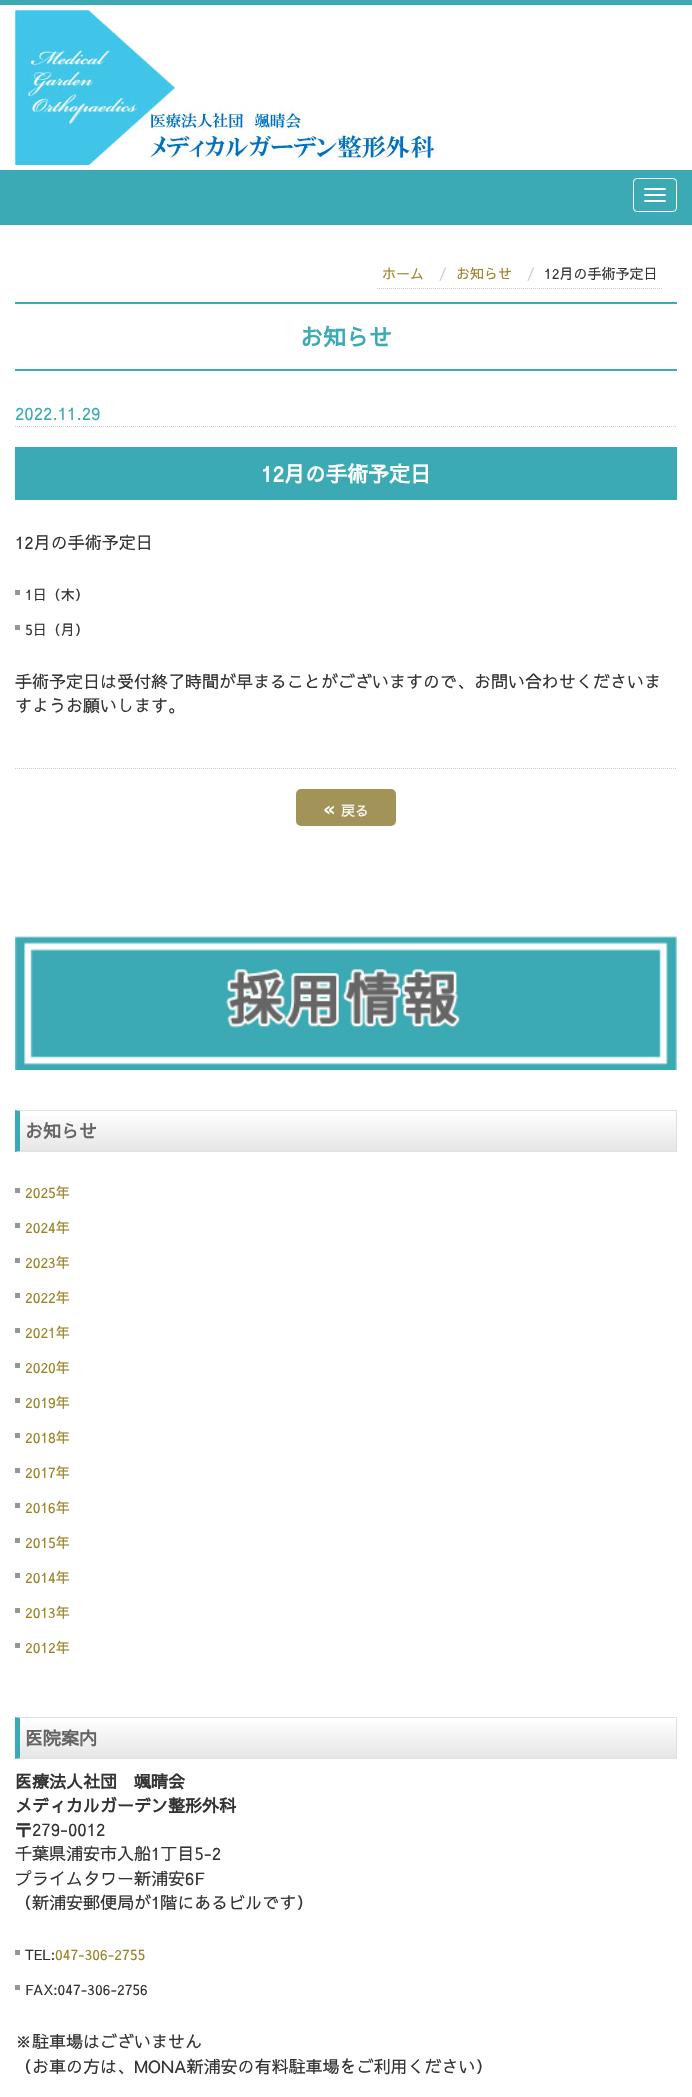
void draw(SkCanvas* canvas) {
    SkPaint paint;
    paint.setAntiAlias(true);
    canvas->clear(0xFFFFFFFF);
    paint.setColor(0xFF3CAAB4);
    canvas->drawRect(SkRect::MakeXYWH(0, 0, 692, 5), paint);
    canvas->drawRect(SkRect::MakeXYWH(0, 170, 692, 55), paint);
    canvas->drawImageRect(SkImages::DeferredFromEncodedData(SkData::MakeFromFileName("img1.png")), SkRect::MakeXYWH(15, 10, 424, 155), SkSamplingOptions());
    paint.setStyle(SkPaint::kStroke_Style);
    paint.setStrokeWidth(1);
    paint.setColor(0xFFFFFFFF);
    canvas->drawRoundRect(SkRect::MakeXYWH(633.5f, 178.5f, 43, 33), 3.5f, 3.5f, paint);
    paint.setStyle(SkPaint::kFill_Style);
    canvas->drawRoundRect(SkRect::MakeXYWH(644, 188, 22, 2), 1, 1, paint);
    canvas->drawRoundRect(SkRect::MakeXYWH(644, 194, 22, 2), 1, 1, paint);
    canvas->drawRoundRect(SkRect::MakeXYWH(644, 200, 22, 2), 1, 1, paint);
    paint.setStyle(SkPaint::kStroke_Style);
    paint.setColor(0xFFCCCCCC);
    paint.setPathEffect(SkDashPathEffect::Make({{1, 1}}, 0));
    canvas->drawPath(SkPathBuilder().moveTo(377, 288.5f).lineTo(429, 288.5f).detach(), paint);
    paint.setPathEffect(nullptr);
    SkFont font1(fontMgr->matchFamilyStyle("Sawarabi Gothic", SkFontStyle::Normal()), 14);
    font1.setSubpixel(true);
    paint.setStyle(SkPaint::kFill_Style);
    paint.setColor(0xFF9A8224);
    canvas->drawString("ホーム", 382, 279, font1, paint);
    paint.setStyle(SkPaint::kStroke_Style);
    paint.setColor(0xFFCCCCCC);
    paint.setPathEffect(SkDashPathEffect::Make({{1, 1}}, 0));
    canvas->drawPath(SkPathBuilder().moveTo(429, 288.5f).lineTo(517, 288.5f).detach(), paint);
    paint.setPathEffect(nullptr);
    paint.setStyle(SkPaint::kFill_Style);
    canvas->drawString("/", 439, 279, font1, paint);
    paint.setColor(0xFF9A8224);
    canvas->drawString("お知らせ", 456, 279, font1, paint);
    paint.setStyle(SkPaint::kStroke_Style);
    paint.setColor(0xFFCCCCCC);
    paint.setPathEffect(SkDashPathEffect::Make({{1, 1}}, 0));
    canvas->drawPath(SkPathBuilder().moveTo(517, 288.5f).lineTo(662, 288.5f).detach(), paint);
    paint.setPathEffect(nullptr);
    paint.setStyle(SkPaint::kFill_Style);
    canvas->drawString("/", 527, 279, font1, paint);
    paint.setColor(0xFF333333);
    canvas->drawString("12月の手術予定日", 544, 279, font1, paint);
    paint.setColor(0xFF3CAAB4);
    canvas->drawRect(SkRect::MakeXYWH(15, 302, 662, 2), paint);
    canvas->drawRect(SkRect::MakeXYWH(15, 369, 662, 2), paint);
    SkFont font2(fontMgr->matchFamilyStyle("Sawarabi Gothic", SkFontStyle::Bold()), 23);
    font2.setSubpixel(true);
    canvas->drawString("お知らせ", 300, 346, font2, paint);
    paint.setStyle(SkPaint::kStroke_Style);
    paint.setColor(0xFFCCCCCC);
    paint.setPathEffect(SkDashPathEffect::Make({{1, 1}}, 0));
    canvas->drawPath(SkPathBuilder().moveTo(15, 426.5f).lineTo(677, 426.5f).detach(), paint);
    paint.setPathEffect(nullptr);
    SkFont font3(fontMgr->matchFamilyStyle("Sawarabi Gothic", SkFontStyle::Normal()), 17);
    font3.setSubpixel(true);
    paint.setStyle(SkPaint::kFill_Style);
    paint.setColor(0xFF3CAAB4);
    canvas->drawString("2022.11.29", 15, 420, font3, paint);
    canvas->drawRect(SkRect::MakeXYWH(15, 447, 662, 53), paint);
    SkFont font4(fontMgr->matchFamilyStyle("Sawarabi Gothic", SkFontStyle::Bold()), 21);
    font4.setSubpixel(true);
    paint.setColor(0xFFFFFFFF);
    canvas->drawString("12月の手術予定日", 261, 482, font4, paint);
    paint.setStyle(SkPaint::kStroke_Style);
    paint.setColor(0xFFCCCCCC);
    paint.setPathEffect(SkDashPathEffect::Make({{1, 1}}, 0));
    canvas->drawPath(SkPathBuilder().moveTo(15, 768.5f).lineTo(677, 768.5f).detach(), paint);
    paint.setPathEffect(nullptr);
    paint.setStyle(SkPaint::kFill_Style);
    paint.setColor(0xFF333333);
    canvas->drawString("12月の手術予定日", 15, 549, font3, paint);
    paint.setColor(0xFF969696);
    canvas->drawRect(SkRect::MakeXYWH(15, 590, 5, 5), paint);
    paint.setColor(0xFF333333);
    canvas->drawString("1日（木）", 25, 600, font1, paint);
    paint.setColor(0xFF969696);
    canvas->drawRect(SkRect::MakeXYWH(15, 625, 5, 5), paint);
    paint.setColor(0xFF333333);
    canvas->drawString("5日（月）", 25, 635, font1, paint);
    canvas->drawString("手術予定日は受付終了時間が早まることがございますので、お問い合わせくださいま", 15, 688, font3, paint);
    canvas->drawString("すようお願いします。", 15, 712, font3, paint);
    paint.setColor(0xFFA29358);
    canvas->drawRoundRect(SkRect::MakeXYWH(296, 789, 100, 37), 5, 5, paint);
    SkFont font5(fontMgr->matchFamilyStyle("Sawarabi Gothic", SkFontStyle::Normal()), 20);
    font5.setSubpixel(true);
    paint.setColor(0xFFFFFFFF);
    canvas->drawString("«", 323, 816, font5, paint);
    canvas->drawString("戻る", 341, 816, font1, paint);
    canvas->drawImageRect(SkImages::DeferredFromEncodedData(SkData::MakeFromFileName("img2.png")), SkRect::MakeXYWH(15, 936, 662, 134), SkSamplingOptions());
    {
        const SkColor colors[] = {0xFFFFFFFF, 0xFFE6E6E6};
        const float stops[] = {0, 1};
        const SkPoint ends[] = {{348, 1111}, {348, 1151}};
        paint.setShader(SkGradientShader::MakeLinear(ends, colors, stops, 2, SkTileMode::kClamp));
        paint.setAlpha(255);
    }
    canvas->drawRect(SkRect::MakeXYWH(20, 1115, 656, 36), paint);
    paint.setShader(nullptr);
    paint.setColor(0xFFE1E1E1);
    canvas->drawPath(SkPathBuilder().moveTo(15, 1110).lineTo(677, 1110).lineTo(676, 1111).lineTo(20, 1111).close().detach(), paint);
    canvas->drawRect(SkRect::MakeXYWH(676, 1110, 1, 42), paint);
    canvas->drawPath(SkPathBuilder().moveTo(677, 1152).lineTo(15, 1152).lineTo(20, 1151).lineTo(676, 1151).close().detach(), paint);
    paint.setColor(0xFF3CAAB4);
    canvas->drawPath(SkPathBuilder().moveTo(15, 1152).lineTo(15, 1110).lineTo(20, 1111).lineTo(20, 1151).close().detach(), paint);
    SkFont font6(fontMgr->matchFamilyStyle("Sawarabi Gothic", SkFontStyle::Bold()), 18);
    font6.setSubpixel(true);
    paint.setColor(0xFF646464);
    canvas->drawString("お知らせ", 25, 1138, font6, paint);
    paint.setColor(0xFF969696);
    canvas->drawRect(SkRect::MakeXYWH(15, 1188, 5, 5), paint);
    paint.setColor(0xFF9A8224);
    canvas->drawString("2025年", 25, 1198, font1, paint);
    paint.setColor(0xFF969696);
    canvas->drawRect(SkRect::MakeXYWH(15, 1223, 5, 5), paint);
    paint.setColor(0xFF9A8224);
    canvas->drawString("2024年", 25, 1233, font1, paint);
    paint.setColor(0xFF969696);
    canvas->drawRect(SkRect::MakeXYWH(15, 1258, 5, 5), paint);
    paint.setColor(0xFF9A8224);
    canvas->drawString("2023年", 25, 1268, font1, paint);
    paint.setColor(0xFF969696);
    canvas->drawRect(SkRect::MakeXYWH(15, 1293, 5, 5), paint);
    paint.setColor(0xFF9A8224);
    canvas->drawString("2022年", 25, 1303, font1, paint);
    paint.setColor(0xFF969696);
    canvas->drawRect(SkRect::MakeXYWH(15, 1328, 5, 5), paint);
    paint.setColor(0xFF9A8224);
    canvas->drawString("2021年", 25, 1338, font1, paint);
    paint.setColor(0xFF969696);
    canvas->drawRect(SkRect::MakeXYWH(15, 1363, 5, 5), paint);
    paint.setColor(0xFF9A8224);
    canvas->drawString("2020年", 25, 1373, font1, paint);
    paint.setColor(0xFF969696);
    canvas->drawRect(SkRect::MakeXYWH(15, 1398, 5, 5), paint);
    paint.setColor(0xFF9A8224);
    canvas->drawString("2019年", 25, 1408, font1, paint);
    paint.setColor(0xFF969696);
    canvas->drawRect(SkRect::MakeXYWH(15, 1433, 5, 5), paint);
    paint.setColor(0xFF9A8224);
    canvas->drawString("2018年", 25, 1443, font1, paint);
    paint.setColor(0xFF969696);
    canvas->drawRect(SkRect::MakeXYWH(15, 1468, 5, 5), paint);
    paint.setColor(0xFF9A8224);
    canvas->drawString("2017年", 25, 1478, font1, paint);
    paint.setColor(0xFF969696);
    canvas->drawRect(SkRect::MakeXYWH(15, 1503, 5, 5), paint);
    paint.setColor(0xFF9A8224);
    canvas->drawString("2016年", 25, 1513, font1, paint);
    paint.setColor(0xFF969696);
    canvas->drawRect(SkRect::MakeXYWH(15, 1538, 5, 5), paint);
    paint.setColor(0xFF9A8224);
    canvas->drawString("2015年", 25, 1548, font1, paint);
    paint.setColor(0xFF969696);
    canvas->drawRect(SkRect::MakeXYWH(15, 1573, 5, 5), paint);
    paint.setColor(0xFF9A8224);
    canvas->drawString("2014年", 25, 1583, font1, paint);
    paint.setColor(0xFF969696);
    canvas->drawRect(SkRect::MakeXYWH(15, 1608, 5, 5), paint);
    paint.setColor(0xFF9A8224);
    canvas->drawString("2013年", 25, 1618, font1, paint);
    paint.setColor(0xFF969696);
    canvas->drawRect(SkRect::MakeXYWH(15, 1643, 5, 5), paint);
    paint.setColor(0xFF9A8224);
    canvas->drawString("2012年", 25, 1653, font1, paint);
    {
        const SkColor colors[] = {0xFFFFFFFF, 0xFFE6E6E6};
        const float stops[] = {0, 1};
        const SkPoint ends[] = {{348, 1718}, {348, 1758}};
        paint.setShader(SkGradientShader::MakeLinear(ends, colors, stops, 2, SkTileMode::kClamp));
        paint.setAlpha(255);
    }
    canvas->drawRect(SkRect::MakeXYWH(20, 1722, 656, 36), paint);
    paint.setShader(nullptr);
    paint.setColor(0xFFE1E1E1);
    canvas->drawPath(SkPathBuilder().moveTo(15, 1717).lineTo(677, 1717).lineTo(676, 1718).lineTo(20, 1718).close().detach(), paint);
    canvas->drawRect(SkRect::MakeXYWH(676, 1717, 1, 42), paint);
    canvas->drawPath(SkPathBuilder().moveTo(677, 1759).lineTo(15, 1759).lineTo(20, 1758).lineTo(676, 1758).close().detach(), paint);
    paint.setColor(0xFF3CAAB4);
    canvas->drawPath(SkPathBuilder().moveTo(15, 1759).lineTo(15, 1717).lineTo(20, 1718).lineTo(20, 1758).close().detach(), paint);
    paint.setColor(0xFF646464);
    canvas->drawString("医院案内", 25, 1745, font6, paint);
    SkFont font7(fontMgr->matchFamilyStyle("Sawarabi Gothic", SkFontStyle::Bold()), 17);
    font7.setSubpixel(true);
    paint.setColor(0xFF333333);
    canvas->drawString("医療法人社団　颯晴会", 15, 1788, font7, paint);
    canvas->drawString("メディカルガーデン整形外科", 15, 1812, font7, paint);
    canvas->drawString("〒279-0012", 15, 1836, font3, paint);
    canvas->drawString("千葉県浦安市入船1丁目5-2", 15, 1860, font3, paint);
    canvas->drawString("プライムタワー新浦安6F", 15, 1885, font3, paint);
    canvas->drawString("（新浦安郵便局が1階にあるビルです）", 15, 1909, font3, paint);
    paint.setColor(0xFF969696);
    canvas->drawRect(SkRect::MakeXYWH(15, 1950, 5, 5), paint);
    paint.setColor(0xFF333333);
    canvas->drawString("TEL:", 25, 1960, font1, paint);
    paint.setColor(0xFF9A8224);
    canvas->drawString("047-306-2755", 55, 1960, font1, paint);
    paint.setColor(0xFF969696);
    canvas->drawRect(SkRect::MakeXYWH(15, 1985, 5, 5), paint);
    paint.setColor(0xFF333333);
    canvas->drawString("FAX:047-306-2756", 25, 1995, font1, paint);
    canvas->drawString("※駐車場はございません", 15, 2048, font3, paint);
    canvas->drawString("（お車の方は、MONA新浦安の有料駐車場をご利用ください）", 15, 2073, font3, paint);
}
